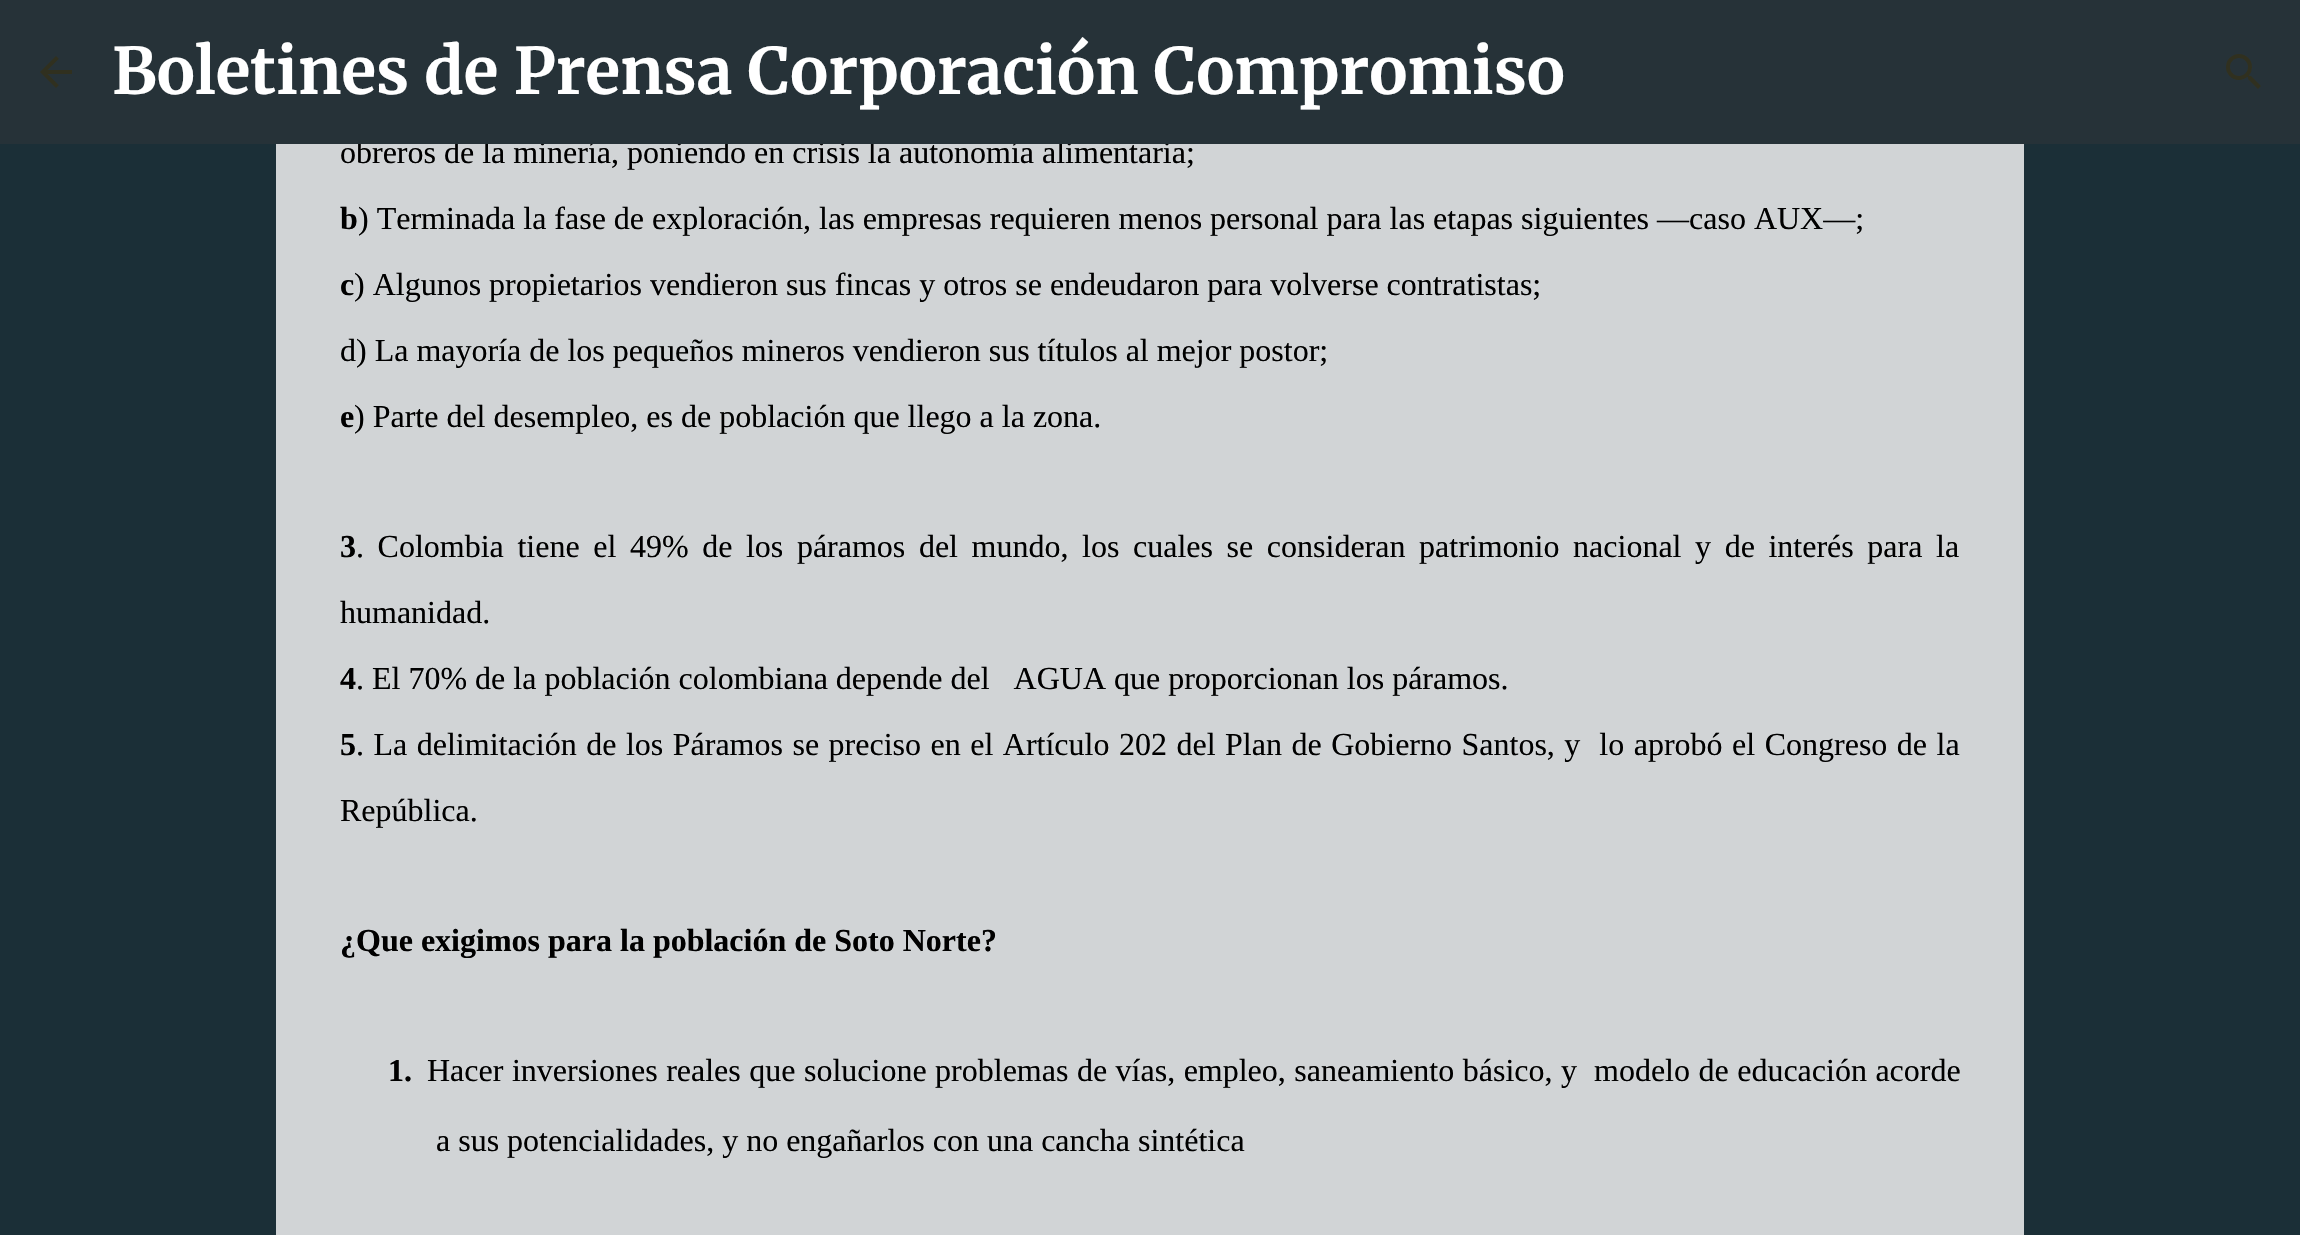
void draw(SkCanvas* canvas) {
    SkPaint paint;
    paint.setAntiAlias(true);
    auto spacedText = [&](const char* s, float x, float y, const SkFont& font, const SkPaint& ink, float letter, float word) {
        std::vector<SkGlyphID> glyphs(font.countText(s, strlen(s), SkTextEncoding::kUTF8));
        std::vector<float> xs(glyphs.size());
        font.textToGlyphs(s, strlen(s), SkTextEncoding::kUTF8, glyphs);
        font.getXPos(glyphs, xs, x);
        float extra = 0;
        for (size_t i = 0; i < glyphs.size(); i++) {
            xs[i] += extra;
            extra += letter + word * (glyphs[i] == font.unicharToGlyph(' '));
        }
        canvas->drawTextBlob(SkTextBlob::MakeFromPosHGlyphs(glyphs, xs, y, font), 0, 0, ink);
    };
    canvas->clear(0xFF1B2F37);
    paint.setColor(0xFFD1D4D6);
    canvas->drawRect(SkRect::MakeXYWH(276, 144, 1748, 1091), paint);
    SkFont font1(fontMgr->matchFamilyStyle("Liberation Serif", SkFontStyle::Normal()), 32);
    font1.setSubpixel(true);
    paint.setColor(0xFF000000);
    canvas->drawString("obreros de la minería, poniendo en crisis la autonomía alimentaria;", 340, 163, font1, paint);
    paint.setColor(0xFF263238);
    canvas->drawRect(SkRect::MakeXYWH(0, 0, 2300, 144), paint);
    canvas->drawImageRect(SkImages::DeferredFromEncodedData(SkData::MakeFromFileName("img1.png")), SkRect::MakeXYWH(40, 56, 32, 32), SkSamplingOptions());
    SkFont font2(fontMgr->matchFamilyStyle("Merriweather", SkFontStyle::Bold()), 64);
    font2.setSubpixel(true);
    paint.setColor(0xFFFFFFFF);
    canvas->drawString("Boletines de Prensa Corporación Compromiso", 112, 94, font2, paint);
    canvas->drawImageRect(SkImages::DeferredFromEncodedData(SkData::MakeFromFileName("img2.png")), SkRect::MakeXYWH(2226, 54, 35, 35), SkSamplingOptions());
    SkFont font3(fontMgr->matchFamilyStyle("Liberation Serif", SkFontStyle::Bold()), 32);
    font3.setSubpixel(true);
    paint.setColor(0xFF000000);
    canvas->drawString("b", 340, 229, font3, paint);
    canvas->drawString(") Terminada la fase de exploración, las empresas requieren menos personal para las etapas siguientes ―caso AUX―;", 358, 229, font1, paint);
    canvas->drawString("c", 340, 295, font3, paint);
    canvas->drawString(") Algunos propietarios vendieron sus fincas y otros se endeudaron para volverse contratistas;", 354, 295, font1, paint);
    canvas->drawString("d) La mayoría de los pequeños mineros vendieron sus títulos al mejor postor;", 340, 361, font1, paint);
    canvas->drawString("e", 340, 427, font3, paint);
    canvas->drawString(") Parte del desempleo, es de población que llego a la zona.", 354, 427, font1, paint);
    canvas->drawString("3", 340, 557, font3, paint);
    spacedText(". Colombia tiene el 49% de los páramos del mundo, los cuales se consideran patrimonio nacional y de interés para la", 356, 557, font1, paint, 0, 5.6f);
    canvas->drawString("humanidad.", 340, 623, font1, paint);
    canvas->drawString("4", 340, 689, font3, paint);
    canvas->drawString(". El 70% de la población colombiana depende del   AGUA que proporcionan los páramos.", 356, 689, font1, paint);
    canvas->drawString("5", 340, 755, font3, paint);
    spacedText(". La delimitación de los Páramos se preciso en el Artículo 202 del Plan de Gobierno Santos, y  lo aprobó el Congreso de la", 356, 755, font1, paint, 0, 1.5f);
    canvas->drawString("República.", 340, 821, font1, paint);
    canvas->drawString("¿Que exigimos para la población de Soto Norte?", 340, 951, font3, paint);
    canvas->drawString("1.", 388, 1081, font3, paint);
    spacedText("Hacer inversiones reales que solucione problemas de vías, empleo, saneamiento básico, y  modelo de educación acorde", 427, 1081, font1, paint, 0, 0.5f);
    canvas->drawString("a sus potencialidades, y no engañarlos con una cancha sintética", 436, 1151, font1, paint);
}
